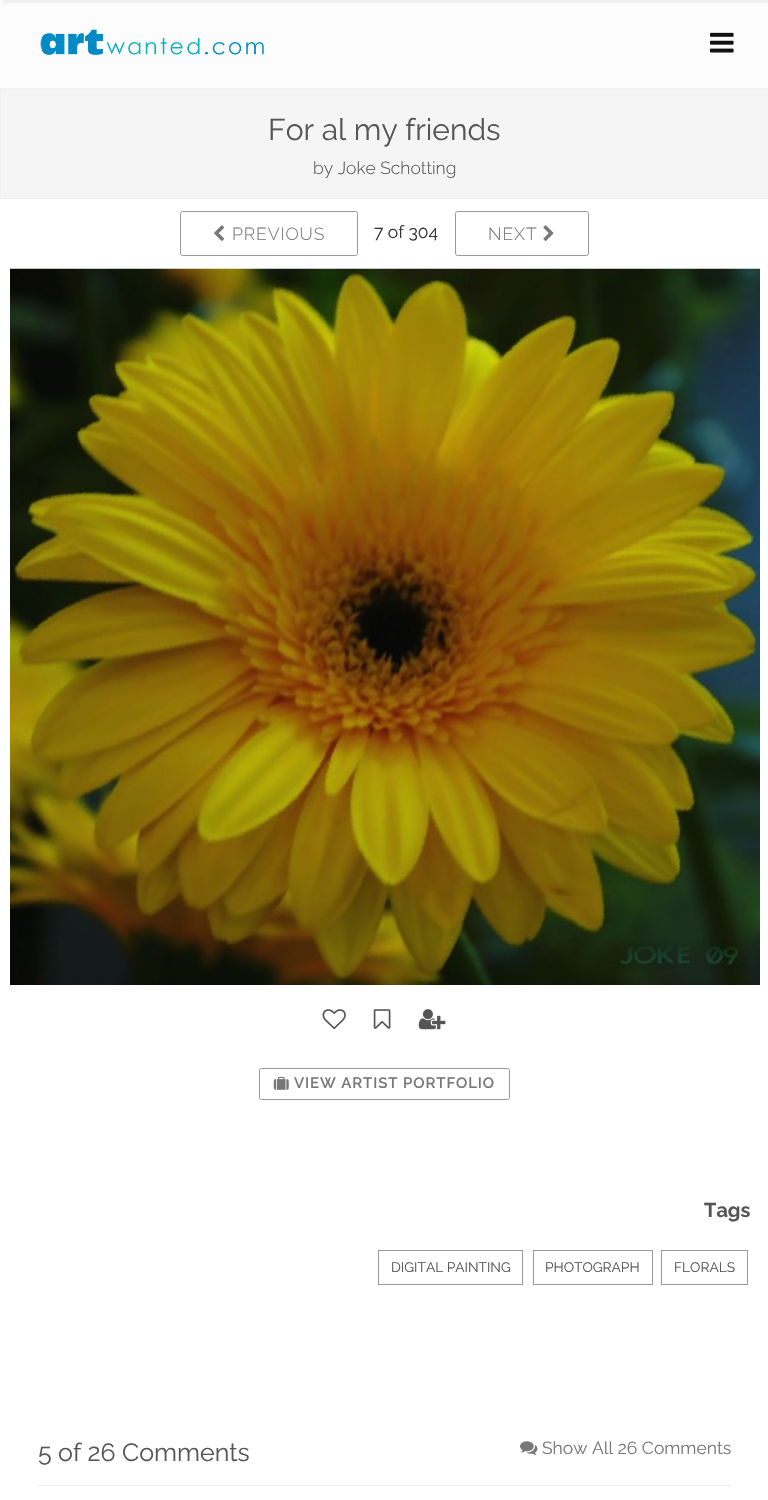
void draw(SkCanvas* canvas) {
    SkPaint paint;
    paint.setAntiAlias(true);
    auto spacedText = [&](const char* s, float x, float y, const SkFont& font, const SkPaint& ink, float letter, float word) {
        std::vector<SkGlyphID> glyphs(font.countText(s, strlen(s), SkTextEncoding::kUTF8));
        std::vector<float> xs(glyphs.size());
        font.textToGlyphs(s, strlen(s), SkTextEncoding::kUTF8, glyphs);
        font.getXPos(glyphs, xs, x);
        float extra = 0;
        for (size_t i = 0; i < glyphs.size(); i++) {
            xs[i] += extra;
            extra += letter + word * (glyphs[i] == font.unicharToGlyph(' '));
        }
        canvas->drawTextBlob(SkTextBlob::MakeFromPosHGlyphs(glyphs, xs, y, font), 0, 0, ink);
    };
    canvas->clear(0xFFFFFFFF);
    paint.setColor(0xFFFCFCFC);
    canvas->drawRect(SkRect::MakeXYWH(0, 0, 768, 88), paint);
    canvas->drawImageRect(SkImages::DeferredFromEncodedData(SkData::MakeFromFileName("img1.png")), SkRect::MakeXYWH(40, 29, 224, 26), SkSamplingOptions());
    canvas->drawImageRect(SkImages::DeferredFromEncodedData(SkData::MakeFromFileName("img2.png")), SkRect::MakeXYWH(710, 32, 24, 21), SkSamplingOptions());
    paint.setColor(0x0D000000);
    paint.setMaskFilter(SkMaskFilter::MakeBlur(kNormal_SkBlurStyle, 1));
    canvas->drawRect(SkRect::MakeXYWH(3, -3, 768, 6), paint);
    paint.setMaskFilter(nullptr);
    paint.setColor(0xFFF5F5F5);
    canvas->drawRect(SkRect::MakeXYWH(0.5f, 88.5f, 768, 110), paint);
    paint.setStyle(SkPaint::kStroke_Style);
    paint.setStrokeWidth(1);
    paint.setColor(0xFFF0F0F0);
    canvas->drawRect(SkRect::MakeXYWH(0.5f, 88.5f, 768, 110), paint);
    SkFont font1(fontMgr->matchFamilyStyle("Raleway", SkFontStyle::Normal()), 30);
    font1.setSubpixel(true);
    paint.setStyle(SkPaint::kFill_Style);
    paint.setColor(0xFF555555);
    canvas->drawString("For al my friends", 268, 140, font1, paint);
    SkFont font2(fontMgr->matchFamilyStyle("Raleway", SkFontStyle(300, SkFontStyle::kNormal_Width, SkFontStyle::kUpright_Slant)), 17.5f);
    font2.setSubpixel(true);
    canvas->drawString("by Joke Schotting", 313, 174, font2, paint);
    paint.setStyle(SkPaint::kStroke_Style);
    paint.setColor(0xFF999999);
    canvas->drawRoundRect(SkRect::MakeXYWH(180.5f, 211.5f, 177, 44), 2, 2, paint);
    canvas->drawImageRect(SkImages::DeferredFromEncodedData(SkData::MakeFromFileName("img3.png")), SkRect::MakeXYWH(214, 225, 11, 16), SkSamplingOptions());
    paint.setStyle(SkPaint::kFill_Style);
    paint.setColor(0xFF777777);
    spacedText("PREVIOUS", 232, 240, font2, paint, 0.9f, 0);
    SkFont font3(fontMgr->matchFamilyStyle("Raleway", SkFontStyle::Normal()), 17.5f);
    font3.setSubpixel(true);
    paint.setColor(0xFF333333);
    canvas->drawString("7 of 304", 374, 238, font3, paint);
    paint.setStyle(SkPaint::kStroke_Style);
    paint.setColor(0xFF999999);
    canvas->drawRoundRect(SkRect::MakeXYWH(455.5f, 211.5f, 133, 44), 2, 2, paint);
    paint.setStyle(SkPaint::kFill_Style);
    paint.setColor(0xFF777777);
    spacedText("NEXT", 488, 240, font2, paint, 0.9f, 0);
    canvas->drawImageRect(SkImages::DeferredFromEncodedData(SkData::MakeFromFileName("img4.png")), SkRect::MakeXYWH(543, 225, 11, 16), SkSamplingOptions());
    canvas->drawImageRect(SkImages::DeferredFromEncodedData(SkData::MakeFromFileName("img5.png")), SkRect::MakeXYWH(10, 268, 750, 717), SkSamplingOptions());
    canvas->drawImageRect(SkImages::DeferredFromEncodedData(SkData::MakeFromFileName("img6.png")), SkRect::MakeXYWH(322, 1009, 24, 21), SkSamplingOptions());
    canvas->drawImageRect(SkImages::DeferredFromEncodedData(SkData::MakeFromFileName("img7.png")), SkRect::MakeXYWH(373, 1009, 18, 20), SkSamplingOptions());
    canvas->drawImageRect(SkImages::DeferredFromEncodedData(SkData::MakeFromFileName("img8.png")), SkRect::MakeXYWH(418, 1009, 28, 21), SkSamplingOptions());
    paint.setStyle(SkPaint::kStroke_Style);
    paint.setColor(0xFF999999);
    canvas->drawRoundRect(SkRect::MakeXYWH(259.5f, 1068.5f, 250, 31), 2, 2, paint);
    canvas->drawImageRect(SkImages::DeferredFromEncodedData(SkData::MakeFromFileName("img9.png")), SkRect::MakeXYWH(273, 1076, 16, 14), SkSamplingOptions());
    SkFont font4(fontMgr->matchFamilyStyle("Raleway", SkFontStyle(600, SkFontStyle::kNormal_Width, SkFontStyle::kUpright_Slant)), 15);
    font4.setSubpixel(true);
    paint.setStyle(SkPaint::kFill_Style);
    paint.setColor(0xFF777777);
    spacedText("VIEW ARTIST PORTFOLIO", 294, 1088, font4, paint, 0.9f, 0);
    SkFont font5(fontMgr->matchFamilyStyle("Raleway", SkFontStyle::Bold()), 20);
    font5.setSubpixel(true);
    paint.setColor(0xFF555555);
    canvas->drawString("Tags", 704, 1217, font5, paint);
    paint.setStyle(SkPaint::kStroke_Style);
    paint.setColor(0xFF999999);
    canvas->drawRect(SkRect::MakeXYWH(378.5f, 1250.5f, 144, 34), paint);
    SkFont font6(fontMgr->matchFamilyStyle("Raleway", SkFontStyle::Normal()), 13.75f);
    font6.setSubpixel(true);
    paint.setStyle(SkPaint::kFill_Style);
    paint.setColor(0xFF555555);
    canvas->drawString("DIGITAL PAINTING", 391, 1272, font6, paint);
    paint.setStyle(SkPaint::kStroke_Style);
    paint.setColor(0xFF999999);
    canvas->drawRect(SkRect::MakeXYWH(533.5f, 1250.5f, 119, 34), paint);
    paint.setStyle(SkPaint::kFill_Style);
    paint.setColor(0xFF555555);
    canvas->drawString("PHOTOGRAPH", 545, 1272, font6, paint);
    paint.setStyle(SkPaint::kStroke_Style);
    paint.setColor(0xFF999999);
    canvas->drawRect(SkRect::MakeXYWH(661.5f, 1250.5f, 86, 34), paint);
    paint.setStyle(SkPaint::kFill_Style);
    paint.setColor(0xFF555555);
    canvas->drawString("FLORALS", 674, 1272, font6, paint);
    paint.setColor(0xFFEBEBEB);
    canvas->drawRect(SkRect::MakeXYWH(38, 1485, 693, 1), paint);
    SkFont font7(fontMgr->matchFamilyStyle("Raleway", SkFontStyle::Normal()), 25);
    font7.setSubpixel(true);
    paint.setColor(0xFF555555);
    canvas->drawString("5 of 26 Comments", 38, 1461, font7, paint);
    canvas->drawImageRect(SkImages::DeferredFromEncodedData(SkData::MakeFromFileName("img10.png")), SkRect::MakeXYWH(520, 1441, 18, 14), SkSamplingOptions());
    paint.setColor(0xFF777777);
    canvas->drawString("Show All 26 Comments", 542, 1454, font3, paint);
}
